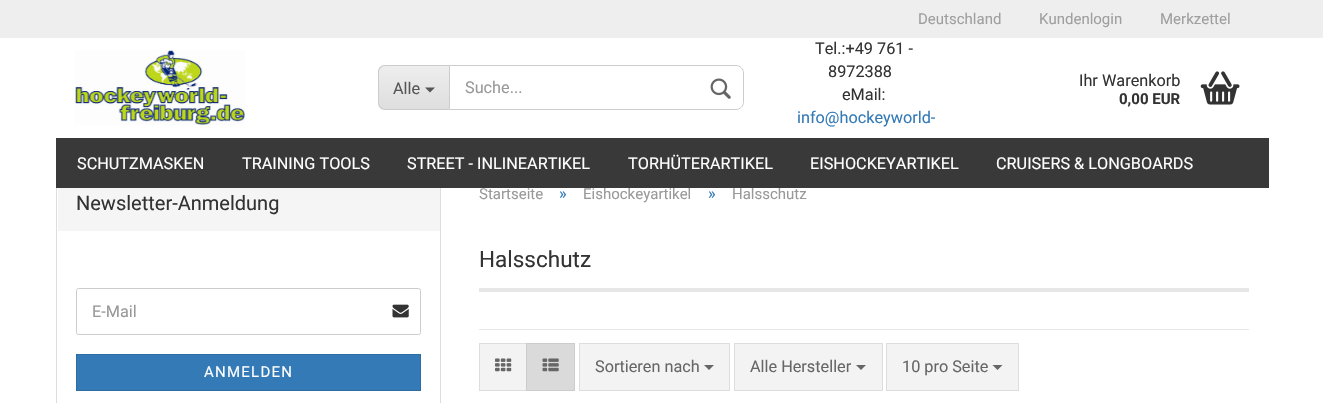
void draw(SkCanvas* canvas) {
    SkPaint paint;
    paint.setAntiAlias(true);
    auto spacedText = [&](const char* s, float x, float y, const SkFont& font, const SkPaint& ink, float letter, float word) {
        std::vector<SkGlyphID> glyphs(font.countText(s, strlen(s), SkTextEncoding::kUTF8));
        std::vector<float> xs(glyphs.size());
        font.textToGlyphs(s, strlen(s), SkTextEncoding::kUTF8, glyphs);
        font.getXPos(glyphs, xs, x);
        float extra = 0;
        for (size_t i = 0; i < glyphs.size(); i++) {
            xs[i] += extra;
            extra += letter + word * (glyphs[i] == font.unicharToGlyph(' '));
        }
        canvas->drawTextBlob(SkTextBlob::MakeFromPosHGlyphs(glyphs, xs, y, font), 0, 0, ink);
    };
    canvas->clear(0xFFFFFFFF);
    paint.setStyle(SkPaint::kStroke_Style);
    paint.setStrokeWidth(1);
    paint.setColor(0xFFDDDDDD);
    canvas->drawRect(SkRect::MakeXYWH(56.5f, 176.5f, 384, 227), paint);
    SkFont font1(fontMgr->matchFamilyStyle("Roboto", SkFontStyle::Normal()), 15);
    font1.setSubpixel(true);
    paint.setStyle(SkPaint::kFill_Style);
    paint.setColor(0xFF999999);
    canvas->drawString("Eishockeyartikel", 583, 199, font1, paint);
    canvas->drawString("Halsschutz", 732, 199, font1, paint);
    paint.setColor(0xFFFFFFFF);
    canvas->drawRect(SkRect::MakeXYWH(56, 176, 725, 12), paint);
    paint.setColor(0xFFEEEEEE);
    canvas->drawRect(SkRect::MakeXYWH(0, 0, 1323, 38), paint);
    paint.setColor(0xFF9F9F9F);
    canvas->drawString("Deutschland", 918, 24, font1, paint);
    canvas->drawString("Kundenlogin", 1039, 24, font1, paint);
    canvas->drawString("Merkzettel", 1160, 24, font1, paint);
    canvas->drawImageRect(SkImages::DeferredFromEncodedData(SkData::MakeFromFileName("img1.png")), SkRect::MakeXYWH(75, 50, 171, 75), SkSamplingOptions());
    canvas->save();
    canvas->clipPath(SkPathBuilder().moveTo(386, 65).lineTo(449, 65).lineTo(449, 110).lineTo(386, 110).cubicTo(381.5f, 110, 378, 106.5f, 378, 102).lineTo(378, 73).cubicTo(378, 68.5f, 381.5f, 65, 386, 65).close().detach(), true);
    {
        const SkColor colors[] = {0xFFEEEEEE, 0xFFDEDEDE};
        const float stops[] = {0, 1};
        const SkPoint ends[] = {{414, 66}, {414, 109}};
        paint.setShader(SkGradientShader::MakeLinear(ends, colors, stops, 2, SkTileMode::kClamp));
        paint.setAlpha(255);
    }
    canvas->drawRect(SkRect::MakeXYWH(378, 66, 71, 43), paint);
    canvas->restore();
    paint.setShader(nullptr);
    paint.setColor(0xFFCCCCCC);
    canvas->drawPath(SkPathBuilder(SkPathFillType::kEvenOdd).moveTo(385, 65).lineTo(449, 65).lineTo(449, 110).lineTo(385, 110).cubicTo(381, 110, 378, 107, 378, 102).lineTo(378, 72).cubicTo(378, 68, 381, 65, 385, 65).close().moveTo(385, 66).lineTo(449, 66).lineTo(449, 109).lineTo(385, 109).cubicTo(382, 109, 379, 106, 379, 102).lineTo(379, 72).cubicTo(379, 69, 382, 66, 385, 66).close().detach(), paint);
    SkFont font2(fontMgr->matchFamilyStyle("Roboto", SkFontStyle::Normal()), 16.25f);
    font2.setSubpixel(true);
    paint.setColor(0xFF555555);
    canvas->drawString("Alle", 393, 94, font2, paint);
    canvas->drawPath(SkPathBuilder().moveTo(425, 87.5f).lineTo(435, 87.5f).lineTo(430, 92.5f).close().detach(), paint);
    paint.setStyle(SkPaint::kStroke_Style);
    paint.setColor(0xFFCCCCCC);
    canvas->drawPath(SkPathBuilder().moveTo(449.5f, 65.5f).lineTo(736, 65.5f).cubicTo(740, 65.5f, 743.5f, 69, 743.5f, 73).lineTo(743.5f, 102).cubicTo(743.5f, 106, 740, 109.5f, 736, 109.5f).lineTo(449.5f, 109.5f).close().detach(), paint);
    paint.setStyle(SkPaint::kFill_Style);
    paint.setColor(0xFF999999);
    canvas->drawString("Suche...", 465, 93, font2, paint);
    canvas->drawImageRect(SkImages::DeferredFromEncodedData(SkData::MakeFromFileName("img2.png")), SkRect::MakeXYWH(710, 78, 21, 21), SkSamplingOptions());
    paint.setColor(0xFF333333);
    canvas->drawString("Tel.:+49 761 -", 815, 54, font2, paint);
    canvas->drawString("8972388", 828, 77, font2, paint);
    canvas->drawString("eMail:", 842, 100, font2, paint);
    paint.setColor(0xFF337AB7);
    canvas->drawString("info@hockeyworld-", 797, 123, font2, paint);
    paint.setColor(0xFF333333);
    canvas->drawString("Ihr Warenkorb", 1079, 86, font2, paint);
    SkFont font3(fontMgr->matchFamilyStyle("Roboto", SkFontStyle::Bold()), 15);
    font3.setSubpixel(true);
    canvas->drawString("0,00 EUR", 1119, 104, font3, paint);
    canvas->drawImageRect(SkImages::DeferredFromEncodedData(SkData::MakeFromFileName("img3.png")), SkRect::MakeXYWH(1200, 71, 40, 34), SkSamplingOptions());
    paint.setColor(0xFF393939);
    canvas->drawRect(SkRect::MakeXYWH(56, 138, 1213, 50), paint);
    paint.setColor(0xFFFFFFFF);
    canvas->drawString("SCHUTZMASKEN", 77, 169, font2, paint);
    canvas->drawString("TRAINING TOOLS", 242, 169, font2, paint);
    canvas->drawString("STREET - INLINEARTIKEL", 407, 169, font2, paint);
    canvas->drawString("TORHÜTERARTIKEL", 628, 169, font2, paint);
    canvas->drawString("EISHOCKEYARTIKEL", 810, 169, font2, paint);
    canvas->drawString("CRUISERS & LONGBOARDS", 996, 169, font2, paint);
    paint.setColor(0xFFF5F5F5);
    canvas->drawRect(SkRect::MakeXYWH(58, 188, 382, 43), paint);
    SkFont font4(fontMgr->matchFamilyStyle("Roboto", SkFontStyle::Normal()), 20);
    font4.setSubpixel(true);
    paint.setColor(0xFF333333);
    canvas->drawString("Newsletter-Anmeldung", 76, 210, font4, paint);
    paint.setStyle(SkPaint::kStroke_Style);
    paint.setColor(0xFFCCCCCC);
    canvas->drawRoundRect(SkRect::MakeXYWH(76.5f, 288.5f, 344, 46), 2, 2, paint);
    paint.setStyle(SkPaint::kFill_Style);
    paint.setColor(0xFF999999);
    canvas->drawString("E-Mail", 92, 317, font2, paint);
    canvas->drawImageRect(SkImages::DeferredFromEncodedData(SkData::MakeFromFileName("img4.png")), SkRect::MakeXYWH(392, 304, 17, 14), SkSamplingOptions());
    paint.setColor(0xFF337AB7);
    canvas->drawRect(SkRect::MakeXYWH(76.5f, 354.5f, 344, 36), paint);
    paint.setStyle(SkPaint::kStroke_Style);
    paint.setColor(0xFF2D6DA3);
    canvas->drawRect(SkRect::MakeXYWH(76.5f, 354.5f, 344, 36), paint);
    paint.setStyle(SkPaint::kFill_Style);
    paint.setColor(0xFFFFFFFF);
    spacedText("ANMELDEN", 204, 377, font1, paint, 1.25f, 0);
    paint.setColor(0xFF999999);
    canvas->drawString("Startseite", 479, 199, font1, paint);
    paint.setColor(0xFF337AB7);
    canvas->drawString("»", 559, 199, font2, paint);
    canvas->drawString("»", 708, 199, font2, paint);
    paint.setColor(0xFFE7E7E7);
    canvas->drawRect(SkRect::MakeXYWH(479, 288, 770, 4), paint);
    SkFont font5(fontMgr->matchFamilyStyle("Roboto", SkFontStyle::Normal()), 22.5f);
    font5.setSubpixel(true);
    paint.setColor(0xFF333333);
    canvas->drawString("Halsschutz", 479, 267, font5, paint);
    paint.setColor(0xFFE7E7E7);
    canvas->drawRect(SkRect::MakeXYWH(479, 329, 770, 1), paint);
    paint.setColor(0xFFF3F3F3);
    canvas->drawRect(SkRect::MakeXYWH(480, 344, 46, 46), paint);
    paint.setStyle(SkPaint::kStroke_Style);
    paint.setColor(0xFFDDDDDD);
    canvas->drawRect(SkRect::MakeXYWH(479.5f, 343.5f, 48, 47), paint);
    canvas->drawImageRect(SkImages::DeferredFromEncodedData(SkData::MakeFromFileName("img5.png")), SkRect::MakeXYWH(495, 358, 17, 14), SkSamplingOptions());
    paint.setStyle(SkPaint::kFill_Style);
    paint.setColor(0xFFDADADA);
    canvas->drawRect(SkRect::MakeXYWH(526.5f, 343.5f, 48, 47), paint);
    paint.setStyle(SkPaint::kStroke_Style);
    paint.setColor(0xFFCCCCCC);
    canvas->drawRect(SkRect::MakeXYWH(526.5f, 343.5f, 48, 47), paint);
    canvas->drawImageRect(SkImages::DeferredFromEncodedData(SkData::MakeFromFileName("img6.png")), SkRect::MakeXYWH(542, 358, 17, 14), SkSamplingOptions());
    paint.setStyle(SkPaint::kFill_Style);
    paint.setColor(0xFFF3F3F3);
    canvas->drawRect(SkRect::MakeXYWH(579.5f, 343.5f, 150, 47), paint);
    paint.setStyle(SkPaint::kStroke_Style);
    paint.setColor(0xFFDDDDDD);
    canvas->drawRect(SkRect::MakeXYWH(579.5f, 343.5f, 150, 47), paint);
    paint.setStyle(SkPaint::kFill_Style);
    paint.setColor(0xFF666666);
    canvas->drawString("Sortieren nach", 595, 372, font2, paint);
    canvas->drawPath(SkPathBuilder().moveTo(704, 365).lineTo(714, 365).lineTo(709, 370).close().detach(), paint);
    paint.setColor(0xFFF3F3F3);
    canvas->drawRect(SkRect::MakeXYWH(734.5f, 343.5f, 148, 47), paint);
    paint.setStyle(SkPaint::kStroke_Style);
    paint.setColor(0xFFDDDDDD);
    canvas->drawRect(SkRect::MakeXYWH(734.5f, 343.5f, 148, 47), paint);
    paint.setStyle(SkPaint::kFill_Style);
    paint.setColor(0xFF666666);
    canvas->drawString("Alle Hersteller", 750, 372, font2, paint);
    canvas->drawPath(SkPathBuilder().moveTo(856, 365).lineTo(866, 365).lineTo(861, 370).close().detach(), paint);
    paint.setColor(0xFFF3F3F3);
    canvas->drawRect(SkRect::MakeXYWH(886.5f, 343.5f, 132, 47), paint);
    paint.setStyle(SkPaint::kStroke_Style);
    paint.setColor(0xFFDDDDDD);
    canvas->drawRect(SkRect::MakeXYWH(886.5f, 343.5f, 132, 47), paint);
    paint.setStyle(SkPaint::kFill_Style);
    paint.setColor(0xFF666666);
    canvas->drawString("10 pro Seite", 902, 372, font2, paint);
    canvas->drawPath(SkPathBuilder().moveTo(992.5f, 365).lineTo(1002.5f, 365).lineTo(997.5f, 370).close().detach(), paint);
}
